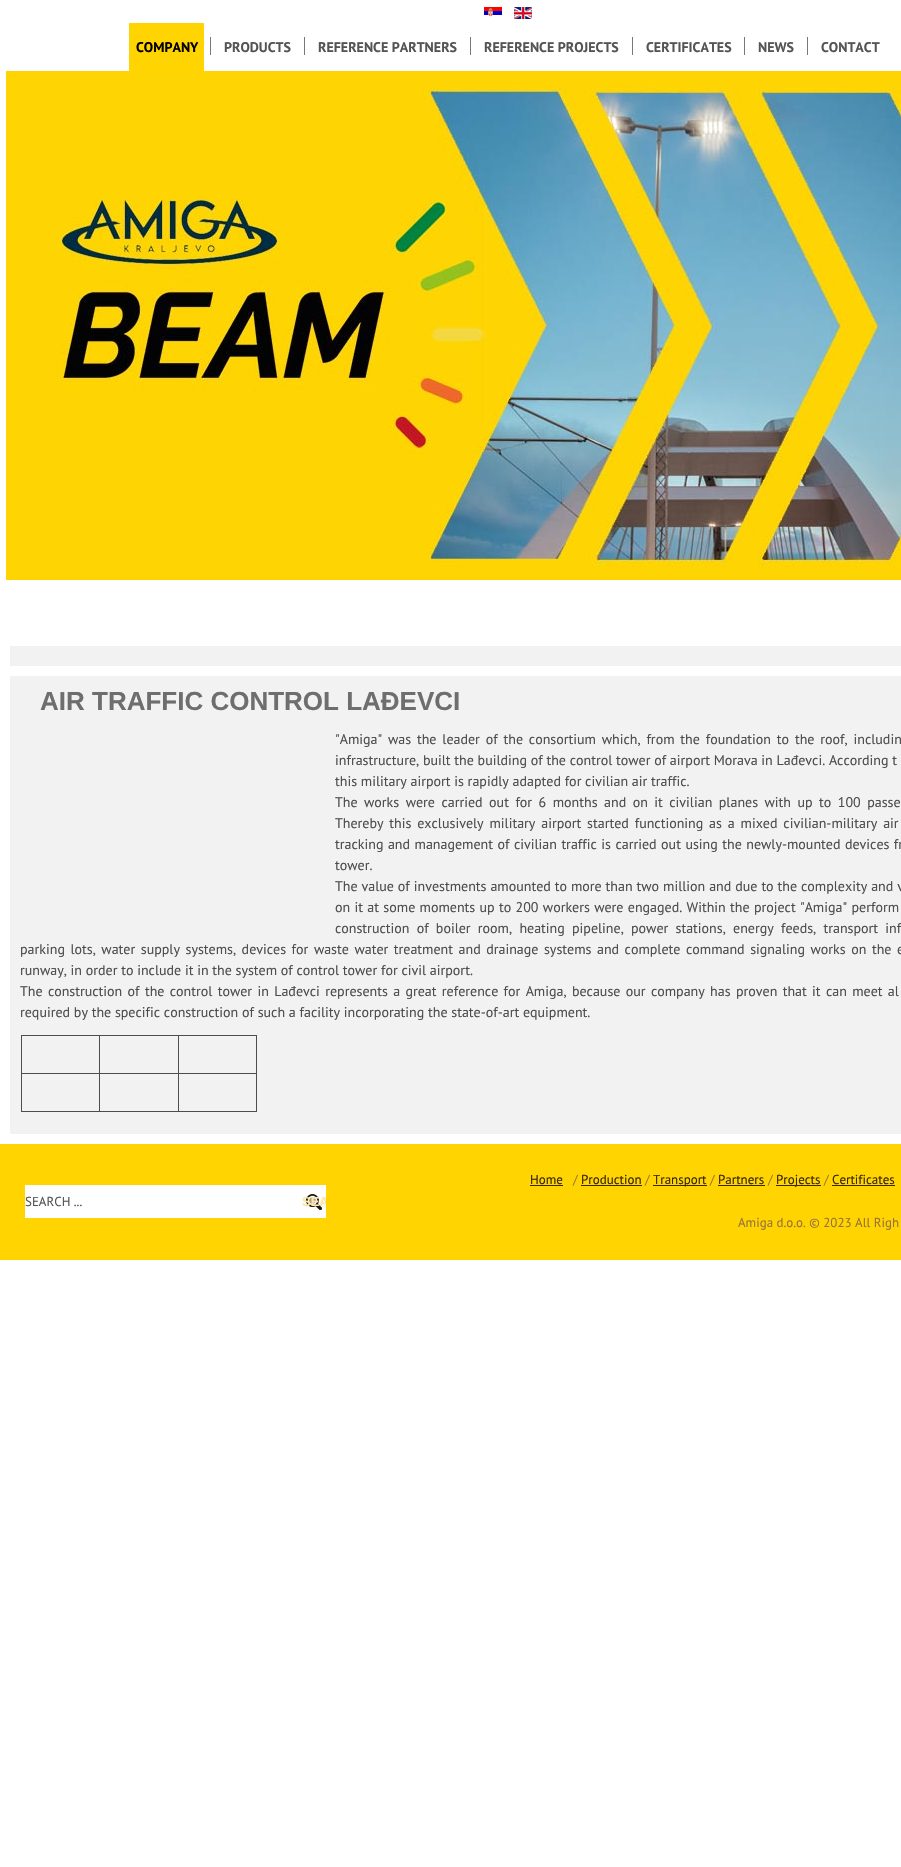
void draw(SkCanvas* canvas) {
    SkPaint paint;
    paint.setAntiAlias(true);
    auto spacedText = [&](const char* s, float x, float y, const SkFont& font, const SkPaint& ink, float letter, float word) {
        std::vector<SkGlyphID> glyphs(font.countText(s, strlen(s), SkTextEncoding::kUTF8));
        std::vector<float> xs(glyphs.size());
        font.textToGlyphs(s, strlen(s), SkTextEncoding::kUTF8, glyphs);
        font.getXPos(glyphs, xs, x);
        float extra = 0;
        for (size_t i = 0; i < glyphs.size(); i++) {
            xs[i] += extra;
            extra += letter + word * (glyphs[i] == font.unicharToGlyph(' '));
        }
        canvas->drawTextBlob(SkTextBlob::MakeFromPosHGlyphs(glyphs, xs, y, font), 0, 0, ink);
    };
    canvas->clear(0xFFFFFFFF);
    canvas->drawImageRect(SkImages::DeferredFromEncodedData(SkData::MakeFromFileName("img1.png")), SkRect::MakeXYWH(484, 7, 18, 10), SkSamplingOptions());
    canvas->drawImageRect(SkImages::DeferredFromEncodedData(SkData::MakeFromFileName("img2.png")), SkRect::MakeXYWH(514, 7, 18, 12), SkSamplingOptions());
    paint.setColor(0xFFFFD400);
    canvas->drawRect(SkRect::MakeXYWH(129, 23, 75, 48), paint);
    SkFont font1(fontMgr->matchFamilyStyle("PT Sans", SkFontStyle::Bold()), 14);
    font1.setSubpixel(true);
    paint.setColor(0xFF000000);
    canvas->drawString("COMPANY", 136, 52, font1, paint);
    paint.setColor(0xFF787878);
    canvas->drawRect(SkRect::MakeXYWH(210, 37, 1, 18), paint);
    paint.setColor(0xFF545454);
    canvas->drawString("PRODUCTS", 224, 52, font1, paint);
    paint.setColor(0xFF787878);
    canvas->drawRect(SkRect::MakeXYWH(304, 37, 1, 18), paint);
    paint.setColor(0xFF545454);
    canvas->drawString("REFERENCE PARTNERS", 318, 52, font1, paint);
    paint.setColor(0xFF787878);
    canvas->drawRect(SkRect::MakeXYWH(470, 37, 1, 18), paint);
    paint.setColor(0xFF545454);
    canvas->drawString("REFERENCE PROJECTS", 484, 52, font1, paint);
    paint.setColor(0xFF787878);
    canvas->drawRect(SkRect::MakeXYWH(632, 37, 1, 18), paint);
    paint.setColor(0xFF545454);
    canvas->drawString("CERTIFICATES", 646, 52, font1, paint);
    paint.setColor(0xFF787878);
    canvas->drawRect(SkRect::MakeXYWH(744, 37, 1, 18), paint);
    paint.setColor(0xFF545454);
    canvas->drawString("NEWS", 758, 52, font1, paint);
    paint.setColor(0xFF787878);
    canvas->drawRect(SkRect::MakeXYWH(807, 37, 1, 18), paint);
    paint.setColor(0xFF545454);
    canvas->drawString("CONTACT", 821, 52, font1, paint);
    canvas->drawImageRect(SkImages::DeferredFromEncodedData(SkData::MakeFromFileName("img3.png")), SkRect::MakeXYWH(6, 71, 895, 509), SkSamplingOptions());
    paint.setColor(0xFFF2F2F2);
    canvas->drawRect(SkRect::MakeXYWH(10, 646, 891, 20), paint);
    canvas->drawRect(SkRect::MakeXYWH(10, 676, 891, 458), paint);
    SkFont font2(fontMgr->matchFamilyStyle("Liberation Sans", SkFontStyle::Bold()), 26);
    font2.setSubpixel(true);
    paint.setColor(0xFF6E6E6E);
    canvas->drawString("AIR TRAFFIC CONTROL LAĐEVCI", 40, 710, font2, paint);
    SkFont font3(fontMgr->matchFamilyStyle("PT Sans", SkFontStyle::Normal()), 14);
    font3.setSubpixel(true);
    paint.setColor(0xFF4D4D4D);
    spacedText("\"Amiga\" was the leader of the consortium which, from the foundation to the roof, includin", 335, 744, font3, paint, 0, 2.1f);
    canvas->drawString("infrastructure, built the building of the control tower of airport Morava in Lađevci. According t", 335, 765, font3, paint);
    canvas->drawString("this military airport is rapidly adapted for civilian air traffic.", 335, 786, font3, paint);
    spacedText("The works were carried out for 6 months and on it civilian planes with up to 100 passe", 335, 807, font3, paint, 0, 2.75f);
    spacedText("Thereby this exclusively military airport started functioning as a mixed civilian-military air", 335, 828, font3, paint, 0, 2.1f);
    spacedText("tracking and management of civilian traffic is carried out using the newly-mounted devices fr", 335, 849, font3, paint, 0, 0.75f);
    canvas->drawString("tower.", 335, 870, font3, paint);
    spacedText("The value of investments amounted to more than two million and due to the complexity and v", 335, 891, font3, paint, 0, 0.2f);
    spacedText("on it at some moments up to 200 workers were engaged. Within the project \"Amiga\" perform", 335, 912, font3, paint, 0, 0.6f);
    spacedText("construction of boiler room, heating pipeline, power stations, energy feeds, transport inf", 335, 933, font3, paint, 0, 3.5f);
    spacedText("parking lots, water supply systems, devices for waste water treatment and drainage systems and complete command signaling works on the e", 20, 954, font3, paint, 0, 1.8f);
    canvas->drawString("runway, in order to include it in the system of control tower for civil airport.", 20, 975, font3, paint);
    spacedText("The construction of the control tower in Lađevci represents a great reference for Amiga, because our company has proven that it can meet al", 20, 996, font3, paint, 0, 1.6f);
    canvas->drawString("required by the specific construction of such a facility incorporating the state-of-art equipment.", 20, 1017, font3, paint);
    canvas->drawRect(SkRect::MakeXYWH(178, 1035, 79, 1), paint);
    canvas->drawRect(SkRect::MakeXYWH(178, 1073, 79, 1), paint);
    canvas->drawRect(SkRect::MakeXYWH(256, 1073, 1, 39), paint);
    canvas->drawRect(SkRect::MakeXYWH(178, 1111, 79, 1), paint);
    canvas->drawRect(SkRect::MakeXYWH(178, 1073, 1, 39), paint);
    canvas->drawRect(SkRect::MakeXYWH(99, 1073, 80, 1), paint);
    canvas->drawRect(SkRect::MakeXYWH(178, 1035, 1, 39), paint);
    canvas->drawRect(SkRect::MakeXYWH(99, 1035, 80, 1), paint);
    canvas->drawRect(SkRect::MakeXYWH(99, 1111, 80, 1), paint);
    canvas->drawRect(SkRect::MakeXYWH(99, 1073, 1, 39), paint);
    canvas->drawRect(SkRect::MakeXYWH(21, 1073, 79, 1), paint);
    canvas->drawRect(SkRect::MakeXYWH(99, 1035, 1, 39), paint);
    canvas->drawRect(SkRect::MakeXYWH(21, 1035, 79, 1), paint);
    canvas->drawRect(SkRect::MakeXYWH(21, 1111, 79, 1), paint);
    canvas->drawRect(SkRect::MakeXYWH(21, 1073, 1, 39), paint);
    canvas->drawRect(SkRect::MakeXYWH(21, 1035, 1, 39), paint);
    canvas->drawRect(SkRect::MakeXYWH(256, 1035, 1, 39), paint);
    paint.setColor(0xFFFFD400);
    canvas->drawRect(SkRect::MakeXYWH(0, 1144, 901, 116), paint);
    paint.setColor(0xFFFFFFFF);
    canvas->drawRect(SkRect::MakeXYWH(25, 1185, 301, 33), paint);
    SkFont font4(fontMgr->matchFamilyStyle("PT Sans", SkFontStyle::Normal()), 13);
    font4.setSubpixel(true);
    paint.setColor(0xFF545454);
    canvas->drawString("SEARCH ...", 25, 1206, font4, paint);
    canvas->drawImageRect(SkImages::DeferredFromEncodedData(SkData::MakeFromFileName("img4.png")), SkRect::MakeXYWH(306, 1194, 16, 16), SkSamplingOptions());
    canvas->save();
    canvas->clipRect(SkRect::MakeXYWH(302, 1185, 24, 33));
    SkFont font5(fontMgr->matchFamilyStyle("Liberation Sans", SkFontStyle::Bold()), 13);
    font5.setSubpixel(true);
    paint.setColor(0xFFFDE6A5);
    canvas->drawString("SEA", 302, 1206, font5, paint);
    canvas->restore();
    paint.setColor(0xFF372901);
    canvas->drawString("Home", 530, 1184, font4, paint);
    canvas->drawRect(SkRect::MakeXYWH(530, 1185, 33, 1), paint);
    paint.setColor(0xFF97733B);
    canvas->drawString("/", 573, 1184, font4, paint);
    paint.setColor(0xFF372901);
    canvas->drawString("Production", 581, 1184, font4, paint);
    canvas->drawRect(SkRect::MakeXYWH(581, 1185, 61, 1), paint);
    paint.setColor(0xFF97733B);
    canvas->drawString("/", 645, 1184, font4, paint);
    paint.setColor(0xFF372901);
    canvas->drawRect(SkRect::MakeXYWH(653, 1185, 54, 1), paint);
    canvas->drawString("Transport", 653, 1184, font4, paint);
    paint.setColor(0xFF97733B);
    canvas->drawString("/", 710, 1184, font4, paint);
    paint.setColor(0xFF372901);
    canvas->drawString("Partners", 718, 1184, font4, paint);
    canvas->drawRect(SkRect::MakeXYWH(718, 1185, 47, 1), paint);
    paint.setColor(0xFF97733B);
    canvas->drawString("/", 768, 1184, font4, paint);
    paint.setColor(0xFF372901);
    canvas->drawRect(SkRect::MakeXYWH(776, 1185, 45, 1), paint);
    canvas->drawString("Projects", 776, 1184, font4, paint);
    paint.setColor(0xFF97733B);
    canvas->drawString("/", 824, 1184, font4, paint);
    paint.setColor(0xFF372901);
    canvas->drawString("Certificates", 832, 1184, font4, paint);
    canvas->drawRect(SkRect::MakeXYWH(832, 1185, 63, 1), paint);
    paint.setColor(0xFF97733B);
    canvas->drawString("Amiga d.o.o. © 2023 All Righ", 738, 1227, font4, paint);
}
